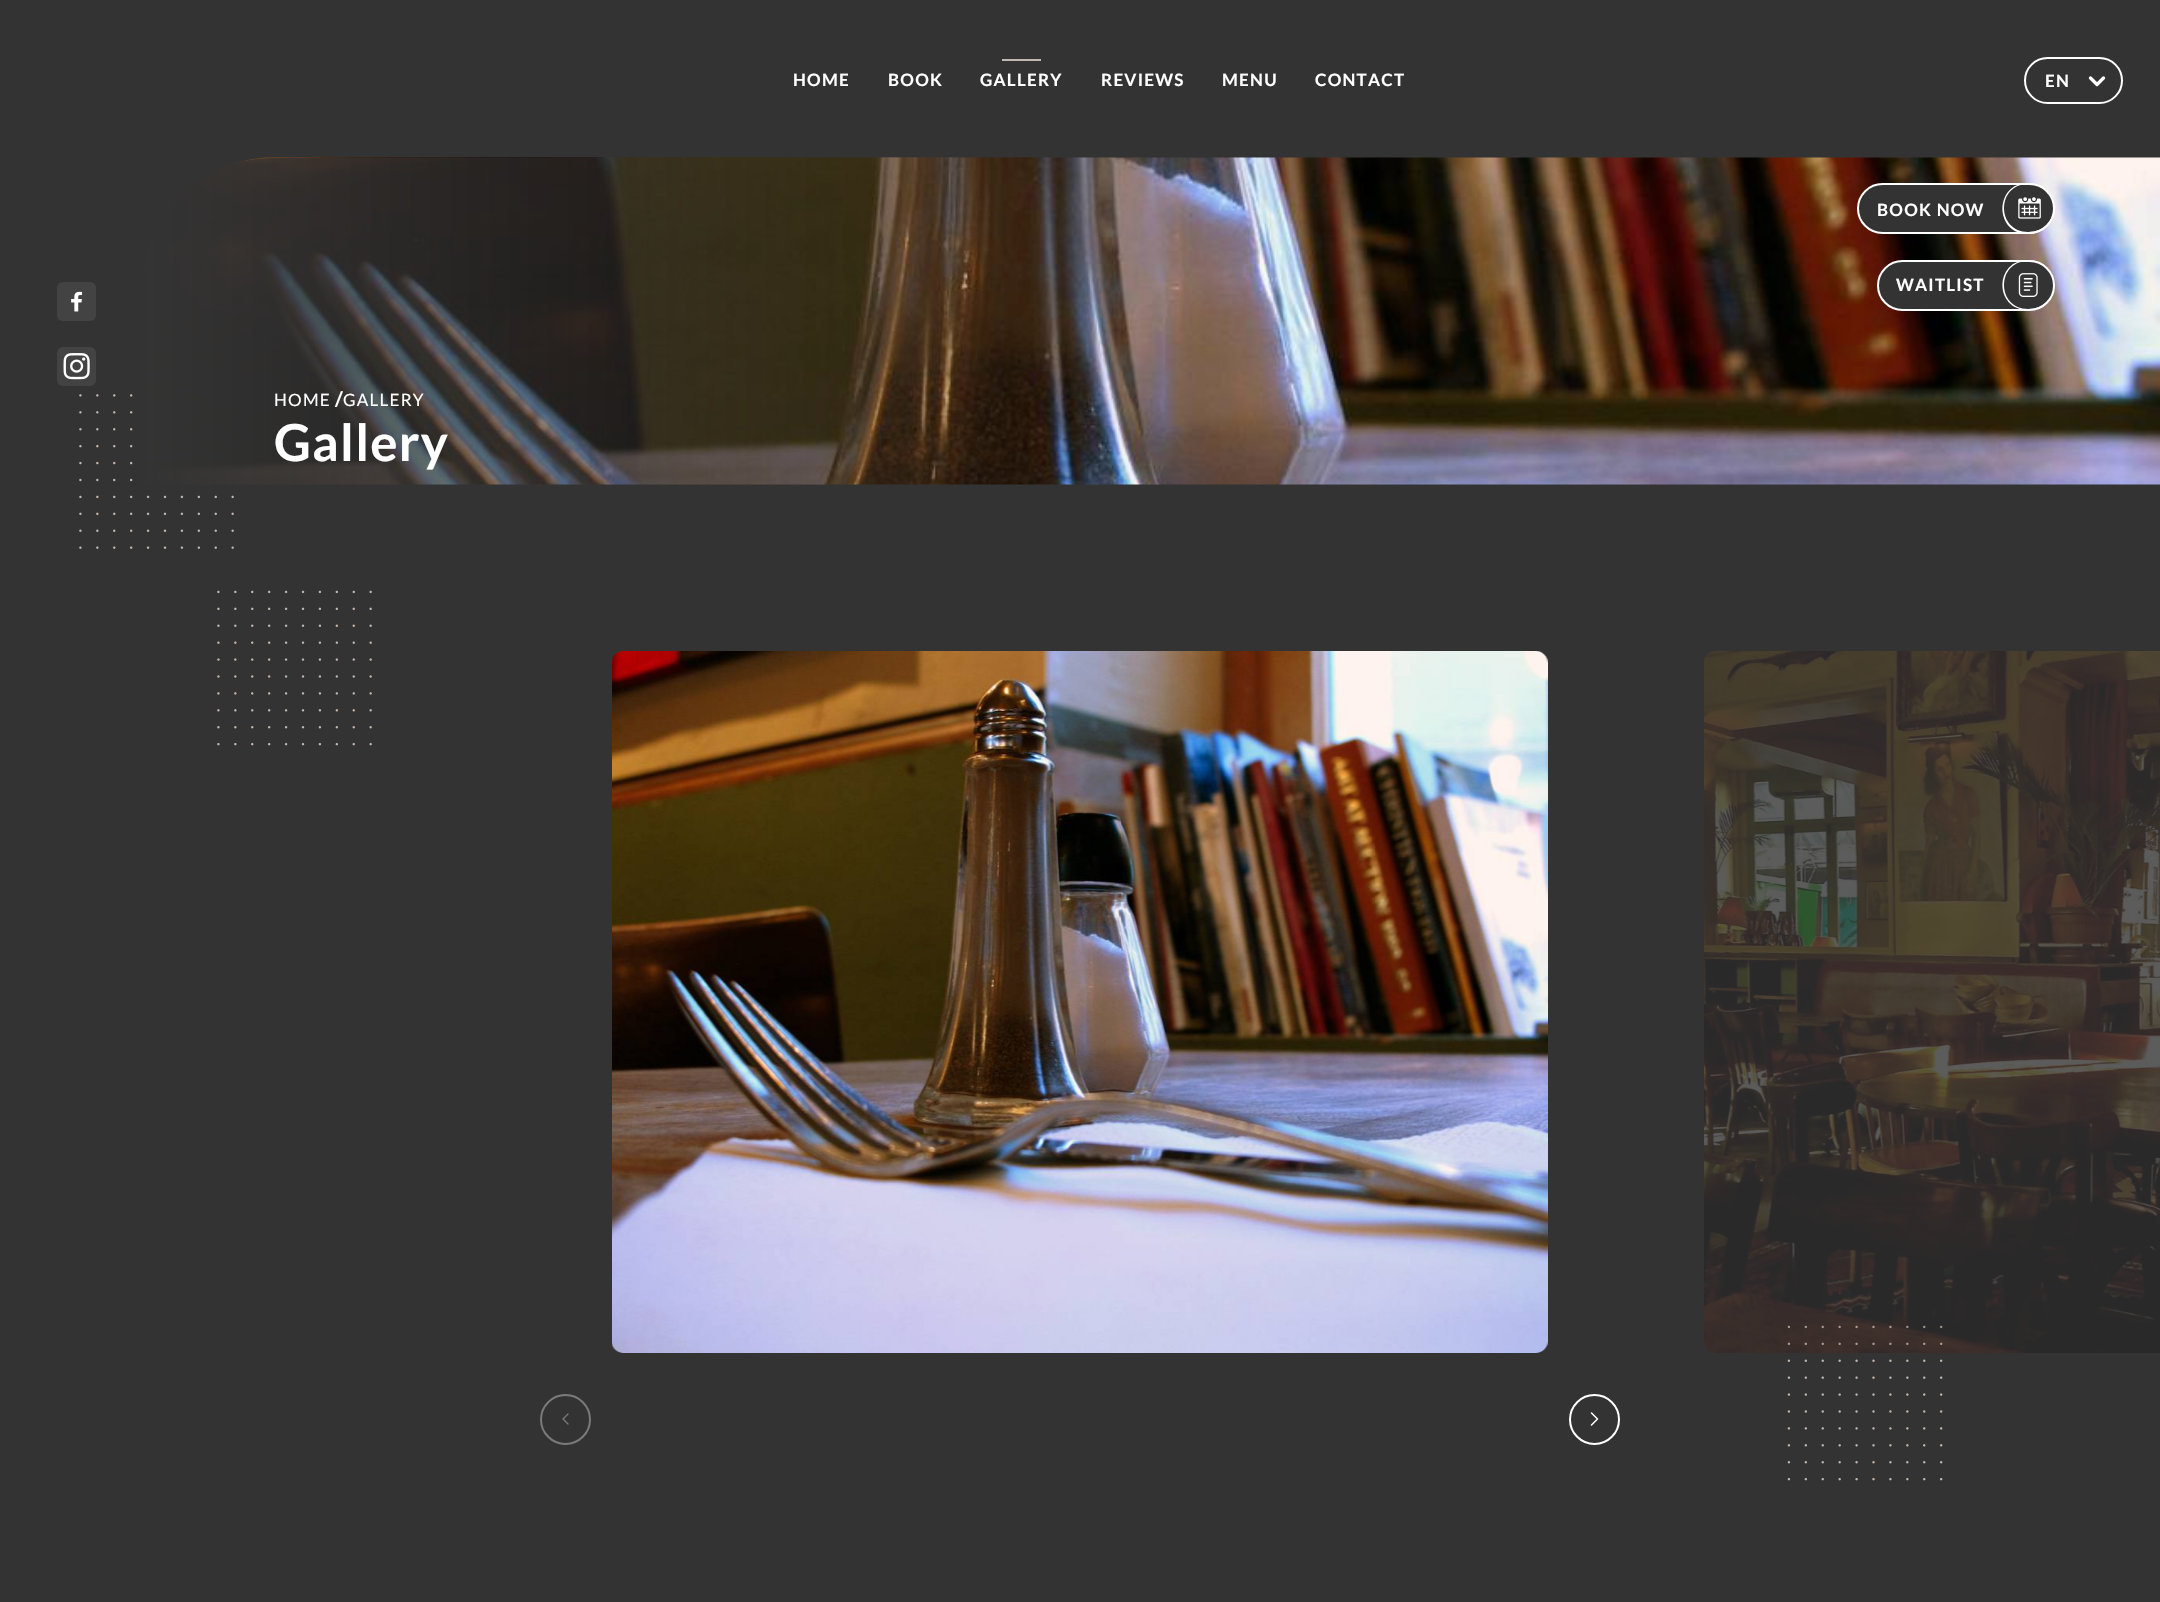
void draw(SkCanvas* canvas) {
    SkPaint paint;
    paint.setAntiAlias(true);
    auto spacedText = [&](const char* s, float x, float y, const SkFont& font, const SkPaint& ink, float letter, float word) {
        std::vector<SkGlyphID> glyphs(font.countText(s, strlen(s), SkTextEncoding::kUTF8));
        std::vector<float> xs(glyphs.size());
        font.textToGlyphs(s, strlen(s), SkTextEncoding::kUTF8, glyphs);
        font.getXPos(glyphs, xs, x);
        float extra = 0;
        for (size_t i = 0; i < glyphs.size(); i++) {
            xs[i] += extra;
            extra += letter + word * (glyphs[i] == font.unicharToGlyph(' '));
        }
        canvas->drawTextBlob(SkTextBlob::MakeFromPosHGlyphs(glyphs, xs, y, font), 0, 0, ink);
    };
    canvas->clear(0xFF333333);
    SkFont font1(fontMgr->matchFamilyStyle("Lato", SkFontStyle::Bold()), 17);
    font1.setSubpixel(true);
    paint.setColor(0xFFFFFFFF);
    spacedText("HOME", 793, 86, font1, paint, 1.25f, 0);
    spacedText("BOOK", 888, 86, font1, paint, 1.25f, 0);
    paint.setColor(0xFFC2B8B2);
    canvas->drawRect(SkRect::MakeXYWH(1002, 59, 39, 2), paint);
    paint.setColor(0xFFFFFFFF);
    spacedText("GALLERY", 980, 86, font1, paint, 1.25f, 0);
    spacedText("REVIEWS", 1101, 86, font1, paint, 1.25f, 0);
    spacedText("MENU", 1222, 86, font1, paint, 1.25f, 0);
    spacedText("CONTACT", 1315, 86, font1, paint, 1.25f, 0);
    paint.setStyle(SkPaint::kStroke_Style);
    paint.setStrokeWidth(2);
    canvas->drawRoundRect(SkRect::MakeXYWH(2025, 58, 97, 45), 22.5f, 22.5f, paint);
    paint.setStyle(SkPaint::kFill_Style);
    spacedText("EN", 2045, 87, font1, paint, 1.25f, 0);
    paint.setStyle(SkPaint::kStroke_Style);
    paint.setStrokeWidth(3.3f);
    paint.setStrokeCap(SkPaint::kRound_Cap);
    paint.setStrokeJoin(SkPaint::kRound_Join);
    canvas->drawPath(SkPathBuilder().moveTo(2090.5f, 78).lineTo(2097, 84.5f).lineTo(2103.5f, 78).detach(), paint);
    canvas->drawImageRect(SkImages::DeferredFromEncodedData(SkData::MakeFromFileName("img1.png")), SkRect::MakeXYWH(79, 394, 155, 155), SkSamplingOptions());
    canvas->drawImageRect(SkImages::DeferredFromEncodedData(SkData::MakeFromFileName("img2.png")), SkRect::MakeXYWH(146, 157, 2014, 328), SkSamplingOptions());
    paint.setStyle(SkPaint::kFill_Style);
    {
        const SkColor colors[] = {0xFF333333, 0x00333333};
        const float stops[] = {0, 0.5f};
        const SkPoint ends[] = {{143, 321}, {2159, 321}};
        paint.setShader(SkGradientShader::MakeLinear(ends, colors, stops, 2, SkTileMode::kClamp));
        paint.setAlpha(255);
    }
    canvas->drawPath(SkPathBuilder().moveTo(272, 158).lineTo(2159, 158).lineTo(2159, 485).lineTo(143, 485).lineTo(143, 287).cubicTo(143, 216, 201, 158, 272, 158).close().detach(), paint);
    paint.setShader(nullptr);
    paint.setColor(0xFF333333);
    canvas->drawRoundRect(SkRect::MakeXYWH(1858, 184, 196, 49), 24.5f, 24.5f, paint);
    paint.setStyle(SkPaint::kStroke_Style);
    paint.setStrokeWidth(2);
    paint.setStrokeCap(SkPaint::kButt_Cap);
    paint.setStrokeJoin(SkPaint::kMiter_Join);
    paint.setColor(0xFFFFFFFF);
    canvas->drawRoundRect(SkRect::MakeXYWH(1858, 184, 196, 49), 24.5f, 24.5f, paint);
    paint.setStyle(SkPaint::kFill_Style);
    spacedText("BOOK NOW", 1877, 216, font1, paint, 1.25f, 0);
    canvas->drawPath(SkPathBuilder(SkPathFillType::kEvenOdd).moveTo(2028, 183).cubicTo(2062, 183, 2062, 234, 2028, 234).cubicTo(1994, 234, 1994, 183, 2028, 183).close().moveTo(2028, 184).cubicTo(2062, 184, 2062, 232, 2028, 232).cubicTo(1996, 232, 1996, 184, 2028, 184).close().detach(), paint);
    canvas->drawImageRect(SkImages::DeferredFromEncodedData(SkData::MakeFromFileName("img3.png")), SkRect::MakeXYWH(2018, 197, 23, 22), SkSamplingOptions());
    paint.setColor(0xFF333333);
    canvas->drawRoundRect(SkRect::MakeXYWH(1878, 261, 176, 49), 24.5f, 24.5f, paint);
    paint.setStyle(SkPaint::kStroke_Style);
    paint.setColor(0xFFFFFFFF);
    canvas->drawRoundRect(SkRect::MakeXYWH(1878, 261, 176, 49), 24.5f, 24.5f, paint);
    paint.setStyle(SkPaint::kFill_Style);
    spacedText("WAITLIST", 1896, 291, font1, paint, 1.25f, 0);
    canvas->drawPath(SkPathBuilder(SkPathFillType::kEvenOdd).moveTo(2028, 260).cubicTo(2062, 260, 2062, 310, 2028, 310).cubicTo(1994, 310, 1994, 260, 2028, 260).close().moveTo(2028, 261).cubicTo(2062, 261, 2062, 309, 2028, 309).cubicTo(1996, 309, 1996, 261, 2028, 261).close().detach(), paint);
    canvas->drawImageRect(SkImages::DeferredFromEncodedData(SkData::MakeFromFileName("img4.png")), SkRect::MakeXYWH(2018, 273, 20, 24), SkSamplingOptions());
    paint.setColor(0xFF434343);
    canvas->drawRoundRect(SkRect::MakeXYWH(57, 282, 39, 39), 6, 6, paint);
    canvas->drawImageRect(SkImages::DeferredFromEncodedData(SkData::MakeFromFileName("img5.png")), SkRect::MakeXYWH(71, 291, 12, 21), SkSamplingOptions());
    canvas->drawRoundRect(SkRect::MakeXYWH(57, 347, 39, 39), 6, 6, paint);
    canvas->drawImageRect(SkImages::DeferredFromEncodedData(SkData::MakeFromFileName("img6.png")), SkRect::MakeXYWH(63, 353, 27, 27), SkSamplingOptions());
    SkFont font2(fontMgr->matchFamilyStyle("Lato", SkFontStyle::Normal()), 17);
    font2.setSubpixel(true);
    paint.setColor(0xFFFFFFFF);
    spacedText("HOME", 274, 406, font2, paint, 1.25f, 0);
    SkFont font3(fontMgr->matchFamilyStyle("Lato", SkFontStyle::Bold()), 20);
    font3.setSubpixel(true);
    spacedText("/", 335, 406, font3, paint, 1.25f, 0);
    spacedText("GALLERY", 343, 406, font2, paint, 1.25f, 0);
    SkFont font4(fontMgr->matchFamilyStyle("Lato", SkFontStyle::Bold()), 51);
    font4.setSubpixel(true);
    spacedText("Gallery", 274, 461, font4, paint, 1.25f, 0);
    canvas->drawImageRect(SkImages::DeferredFromEncodedData(SkData::MakeFromFileName("img7.png")), SkRect::MakeXYWH(217, 590, 155, 156), SkSamplingOptions());
    canvas->drawImageRect(SkImages::DeferredFromEncodedData(SkData::MakeFromFileName("img8.png")), SkRect::MakeXYWH(612, 651, 936, 702), SkSamplingOptions());
    canvas->drawImageRect(SkImages::DeferredFromEncodedData(SkData::MakeFromFileName("img10.png")), SkRect::MakeXYWH(1787, 1325, 156, 156), SkSamplingOptions());
    canvas->drawImageRect(SkImages::DeferredFromEncodedData(SkData::MakeFromFileName("img9.png")), SkRect::MakeXYWH(1704, 651, 456, 702), SkSamplingOptions());
    paint.setStyle(SkPaint::kStroke_Style);
    paint.setColor(0xFF7A7A7A);
    canvas->drawCircle(565.5f, 1419.5f, 24.5f, paint);
    paint.setStrokeWidth(1.3f);
    paint.setStrokeCap(SkPaint::kRound_Cap);
    paint.setStrokeJoin(SkPaint::kRound_Join);
    canvas->drawPath(SkPathBuilder().moveTo(568, 1414).lineTo(563, 1419).lineTo(568, 1424).detach(), paint);
    paint.setStrokeWidth(2);
    paint.setStrokeCap(SkPaint::kButt_Cap);
    paint.setStrokeJoin(SkPaint::kMiter_Join);
    paint.setColor(0xFFFFFFFF);
    canvas->drawCircle(1594.5f, 1419.5f, 24.5f, paint);
    paint.setStrokeWidth(1.5f);
    paint.setStrokeCap(SkPaint::kRound_Cap);
    paint.setStrokeJoin(SkPaint::kRound_Join);
    canvas->drawPath(SkPathBuilder().moveTo(1591.5f, 1425).lineTo(1597.5f, 1419).lineTo(1591.5f, 1413).detach(), paint);
}
